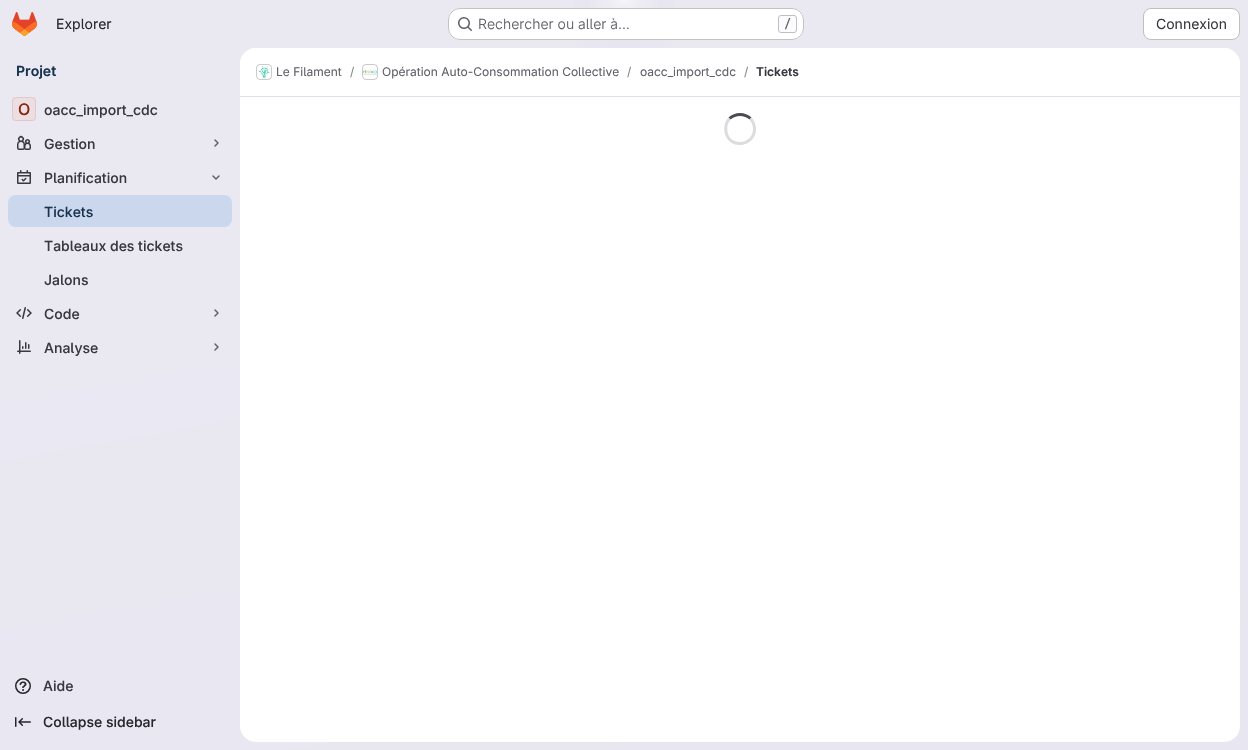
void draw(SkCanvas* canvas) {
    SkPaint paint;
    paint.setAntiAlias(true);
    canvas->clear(0xFFFFFFFF);
    {
        const SkColor colors[] = {0xFFE8E6F0, 0xFFEAE9F2};
        const float stops[] = {0, 0.7f};
        const SkPoint ends[] = {{707, 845}, {541, -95}};
        paint.setShader(SkGradientShader::MakeLinear(ends, colors, stops, 2, SkTileMode::kClamp));
        paint.setAlpha(255);
    }
    canvas->drawRect(SkRect::MakeXYWH(0, 0, 1248, 750), paint);
    {
        const SkColor colors[] = {0xFFE4E2ED, 0x00E4E2ED};
        const float stops[] = {0, 0.11f};
        SkMatrix m = SkMatrix::Translate(624, 0).preScale(624, 750);
        paint.setShader(SkGradientShader::MakeRadial({0, 0}, 1, colors, stops, 2, SkTileMode::kClamp, 0, &m));
        paint.setAlpha(255);
    }
    canvas->drawRect(SkRect::MakeXYWH(575, 0, 98, 48), paint);
    {
        const SkColor colors[] = {0xFFE4E2EC, 0x00E4E2EC};
        const float stops[] = {0, 0.08f};
        SkMatrix m = SkMatrix::Translate(624, 0).preScale(624, 750);
        paint.setShader(SkGradientShader::MakeRadial({0, 0}, 1, colors, stops, 2, SkTileMode::kClamp, 0, &m));
        paint.setAlpha(255);
    }
    canvas->drawRect(SkRect::MakeXYWH(620, 2, 9, 13), paint);
    {
        const SkColor colors[] = {0x99FFFFFF, 0x00FFFFFF};
        const float stops[] = {0, 0.04f};
        paint.setShader(SkGradientShader::MakeRadial({624, 0}, 976, colors, stops, 2, SkTileMode::kClamp));
        paint.setAlpha(255);
    }
    canvas->drawRect(SkRect::MakeXYWH(586, 0, 76, 8), paint);
    canvas->drawImageRect(SkImages::DeferredFromEncodedData(SkData::MakeFromFileName("img1.png")), SkRect::MakeXYWH(12, 12, 25, 24), SkSamplingOptions());
    SkFont font1(fontMgr->matchFamilyStyle("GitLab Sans", SkFontStyle::Normal()), 14);
    font1.setSubpixel(true);
    paint.setShader(nullptr);
    paint.setColor(0xFF28272D);
    canvas->drawString("Explorer", 56, 29, font1, paint);
    paint.setColor(0xFFFFFFFF);
    canvas->drawRoundRect(SkRect::MakeXYWH(448, 8, 356, 32), 12, 12, paint);
    paint.setStyle(SkPaint::kStroke_Style);
    paint.setStrokeWidth(1);
    paint.setColor(0x3D050506);
    canvas->drawRoundRect(SkRect::MakeXYWH(448.5f, 8.5f, 355, 31), 11.5f, 11.5f, paint);
    canvas->drawImageRect(SkImages::DeferredFromEncodedData(SkData::MakeFromFileName("img2.png")), SkRect::MakeXYWH(458, 17, 14, 14), SkSamplingOptions());
    SkFont font2(fontMgr->matchFamilyStyle("GitLab Sans", SkFontStyle(300, SkFontStyle::kNormal_Width, SkFontStyle::kUpright_Slant)), 14);
    font2.setSubpixel(true);
    paint.setStyle(SkPaint::kFill_Style);
    paint.setColor(0xFF626168);
    canvas->drawString("Rechercher ou aller à…", 478, 29, font2, paint);
    paint.setColor(0xFFFBFAFD);
    canvas->drawRoundRect(SkRect::MakeXYWH(778.5f, 15.5f, 18, 17), 2.5f, 2.5f, paint);
    paint.setStyle(SkPaint::kStroke_Style);
    paint.setColor(0xFFBFBFC3);
    canvas->drawRoundRect(SkRect::MakeXYWH(778.5f, 15.5f, 18, 17), 2.5f, 2.5f, paint);
    SkFont font3(fontMgr->matchFamilyStyle("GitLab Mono", SkFontStyle(500, SkFontStyle::kNormal_Width, SkFontStyle::kUpright_Slant)), 12);
    font3.setSubpixel(true);
    paint.setStyle(SkPaint::kFill_Style);
    paint.setColor(0xFF626168);
    canvas->drawString("/", 784, 28, font3, paint);
    paint.setColor(0xFFFFFFFF);
    canvas->drawRoundRect(SkRect::MakeXYWH(1143.5f, 8.5f, 96, 31), 7.5f, 7.5f, paint);
    paint.setStyle(SkPaint::kStroke_Style);
    paint.setColor(0xFFBFBFC3);
    canvas->drawRoundRect(SkRect::MakeXYWH(1143.5f, 8.5f, 96, 31), 7.5f, 7.5f, paint);
    paint.setStyle(SkPaint::kFill_Style);
    paint.setColor(0xFF3A383F);
    canvas->drawString("Connexion", 1156, 29, font1, paint);
    SkFont font4(fontMgr->matchFamilyStyle("GitLab Sans", SkFontStyle(600, SkFontStyle::kNormal_Width, SkFontStyle::kUpright_Slant)), 14);
    font4.setSubpixel(true);
    paint.setColor(0xFF18334E);
    canvas->drawString("Projet", 16, 76, font4, paint);
    paint.setColor(0xFFEEDDE1);
    canvas->drawRoundRect(SkRect::MakeXYWH(12, 97, 24, 24), 4, 4, paint);
    paint.setStyle(SkPaint::kStroke_Style);
    paint.setColor(0x14050506);
    canvas->drawRoundRect(SkRect::MakeXYWH(12.5f, 97.5f, 23, 23), 3.5f, 3.5f, paint);
    SkFont font5(fontMgr->matchFamilyStyle("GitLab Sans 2", SkFontStyle(500, SkFontStyle::kNormal_Width, SkFontStyle::kUpright_Slant)), 16);
    font5.setSubpixel(true);
    paint.setStyle(SkPaint::kFill_Style);
    paint.setColor(0xFF812713);
    canvas->drawString("O", 18, 115, font5, paint);
    SkFont font6(fontMgr->matchFamilyStyle("GitLab Sans", SkFontStyle(500, SkFontStyle::kNormal_Width, SkFontStyle::kUpright_Slant)), 14);
    font6.setSubpixel(true);
    paint.setColor(0xFF3A383F);
    canvas->drawString("oacc_import_cdc", 44, 115, font6, paint);
    canvas->drawImageRect(SkImages::DeferredFromEncodedData(SkData::MakeFromFileName("img3.png")), SkRect::MakeXYWH(17, 135, 14, 15), SkSamplingOptions());
    canvas->drawString("Gestion", 44, 149, font6, paint);
    paint.setStyle(SkPaint::kStroke_Style);
    paint.setStrokeWidth(1.5f);
    paint.setStrokeCap(SkPaint::kRound_Cap);
    paint.setStrokeJoin(SkPaint::kRound_Join);
    paint.setColor(0xFF626168);
    canvas->drawPath(SkPathBuilder().moveTo(215, 140).lineTo(218, 143).lineTo(215, 146).detach(), paint);
    canvas->drawImageRect(SkImages::DeferredFromEncodedData(SkData::MakeFromFileName("img4.png")), SkRect::MakeXYWH(17, 170, 14, 14), SkSamplingOptions());
    paint.setStyle(SkPaint::kFill_Style);
    paint.setColor(0xFF3A383F);
    canvas->drawString("Planification", 44, 183, font6, paint);
    paint.setStyle(SkPaint::kStroke_Style);
    paint.setColor(0xFF626168);
    canvas->drawPath(SkPathBuilder().moveTo(219, 176).lineTo(216, 179).lineTo(213, 176).detach(), paint);
    paint.setStyle(SkPaint::kFill_Style);
    paint.setColor(0xFFCAD7EC);
    canvas->drawRoundRect(SkRect::MakeXYWH(8, 195, 224, 32), 8, 8, paint);
    paint.setColor(0xFF18334E);
    canvas->drawString("Tickets", 44, 217, font6, paint);
    paint.setColor(0xFF3A383F);
    canvas->drawString("Tableaux des tickets", 44, 251, font6, paint);
    canvas->drawString("Jalons", 44, 285, font6, paint);
    canvas->drawImageRect(SkImages::DeferredFromEncodedData(SkData::MakeFromFileName("img5.png")), SkRect::MakeXYWH(16, 307, 16, 12), SkSamplingOptions());
    canvas->drawString("Code", 44, 319, font6, paint);
    paint.setStyle(SkPaint::kStroke_Style);
    paint.setColor(0xFF626168);
    canvas->drawPath(SkPathBuilder().moveTo(215, 310).lineTo(218, 313).lineTo(215, 316).detach(), paint);
    canvas->drawImageRect(SkImages::DeferredFromEncodedData(SkData::MakeFromFileName("img6.png")), SkRect::MakeXYWH(17, 340, 14, 14), SkSamplingOptions());
    paint.setStyle(SkPaint::kFill_Style);
    paint.setColor(0xFF3A383F);
    canvas->drawString("Analyse", 44, 353, font6, paint);
    paint.setStyle(SkPaint::kStroke_Style);
    paint.setColor(0xFF626168);
    canvas->drawPath(SkPathBuilder().moveTo(215, 344).lineTo(218, 347).lineTo(215, 350).detach(), paint);
    canvas->drawImageRect(SkImages::DeferredFromEncodedData(SkData::MakeFromFileName("img7.png")), SkRect::MakeXYWH(15, 678, 16, 16), SkSamplingOptions());
    paint.setStyle(SkPaint::kFill_Style);
    paint.setColor(0xFF3A383F);
    canvas->drawString("Aide", 43, 691, font6, paint);
    canvas->drawImageRect(SkImages::DeferredFromEncodedData(SkData::MakeFromFileName("img8.png")), SkRect::MakeXYWH(15, 717, 16, 10), SkSamplingOptions());
    paint.setColor(0xFF28272D);
    canvas->drawString("Collapse sidebar", 43, 727, font6, paint);
    paint.setColor(0xFFFFFFFF);
    canvas->drawRoundRect(SkRect::MakeXYWH(240, 48, 1000, 694), 16, 16, paint);
    canvas->drawPath(SkPathBuilder().moveTo(256, 48).lineTo(1224, 48).cubicTo(1233, 48, 1240, 55, 1240, 64).lineTo(1240, 97).lineTo(240, 97).lineTo(240, 64).cubicTo(240, 55, 247, 48, 256, 48).close().detach(), paint);
    paint.setColor(0xFFE1DFEC);
    canvas->drawRect(SkRect::MakeXYWH(240, 96, 1000, 1), paint);
    paint.setStyle(SkPaint::kStroke_Style);
    paint.setStrokeWidth(1);
    paint.setStrokeCap(SkPaint::kButt_Cap);
    paint.setStrokeJoin(SkPaint::kMiter_Join);
    paint.setColor(0xFFDCDCDE);
    canvas->drawRoundRect(SkRect::MakeXYWH(256.5f, 64.5f, 15, 15), 3.5f, 3.5f, paint);
    canvas->drawImageRect(SkImages::DeferredFromEncodedData(SkData::MakeFromFileName("img9.png")), SkRect::MakeXYWH(258, 65, 12, 14), SkSamplingOptions());
    paint.setColor(0x14050506);
    canvas->drawRoundRect(SkRect::MakeXYWH(256.5f, 64.5f, 15, 15), 3.5f, 3.5f, paint);
    SkFont font7(fontMgr->matchFamilyStyle("GitLab Sans", SkFontStyle::Normal()), 12);
    font7.setSubpixel(true);
    paint.setStyle(SkPaint::kFill_Style);
    paint.setColor(0xFF626168);
    canvas->drawString("Le Filament", 276, 76, font7, paint);
    paint.setColor(0xFF89888D);
    canvas->drawString("/", 350, 76, font7, paint);
    paint.setStyle(SkPaint::kStroke_Style);
    paint.setColor(0xFFDCDCDE);
    canvas->drawRoundRect(SkRect::MakeXYWH(362.5f, 64.5f, 15, 15), 3.5f, 3.5f, paint);
    canvas->drawImageRect(SkImages::DeferredFromEncodedData(SkData::MakeFromFileName("img10.png")), SkRect::MakeXYWH(363, 70, 14, 5), SkSamplingOptions());
    paint.setColor(0x14050506);
    canvas->drawRoundRect(SkRect::MakeXYWH(362.5f, 64.5f, 15, 15), 3.5f, 3.5f, paint);
    paint.setStyle(SkPaint::kFill_Style);
    paint.setColor(0xFF626168);
    canvas->drawString("Opération Auto-Consommation Collective", 382, 76, font7, paint);
    paint.setColor(0xFF89888D);
    canvas->drawString("/", 627, 76, font7, paint);
    paint.setColor(0xFF626168);
    canvas->drawString("oacc_import_cdc", 640, 76, font7, paint);
    paint.setColor(0xFF89888D);
    canvas->drawString("/", 744, 76, font7, paint);
    SkFont font8(fontMgr->matchFamilyStyle("GitLab Sans", SkFontStyle(600, SkFontStyle::kNormal_Width, SkFontStyle::kUpright_Slant)), 12);
    font8.setSubpixel(true);
    paint.setColor(0xFF3A383F);
    canvas->drawString("Tickets", 756, 76, font8, paint);
    paint.setStyle(SkPaint::kStroke_Style);
    paint.setStrokeWidth(3);
    paint.setColor(0xFF4C4B51);
    canvas->drawPath(SkPathBuilder().moveTo(729.5f, 118.5f).cubicTo(735.5f, 113, 744.5f, 113, 750.5f, 118.5f).detach(), paint);
    paint.setColor(0xFFDCDCDE);
    canvas->drawPath(SkPathBuilder().moveTo(750.5f, 118.5f).cubicTo(753, 121.5f, 754.5f, 125, 754.5f, 129).cubicTo(754.5f, 146.5f, 729, 149, 726, 132).cubicTo(725, 127, 726.5f, 122, 729.5f, 118.5f).detach(), paint);
}
